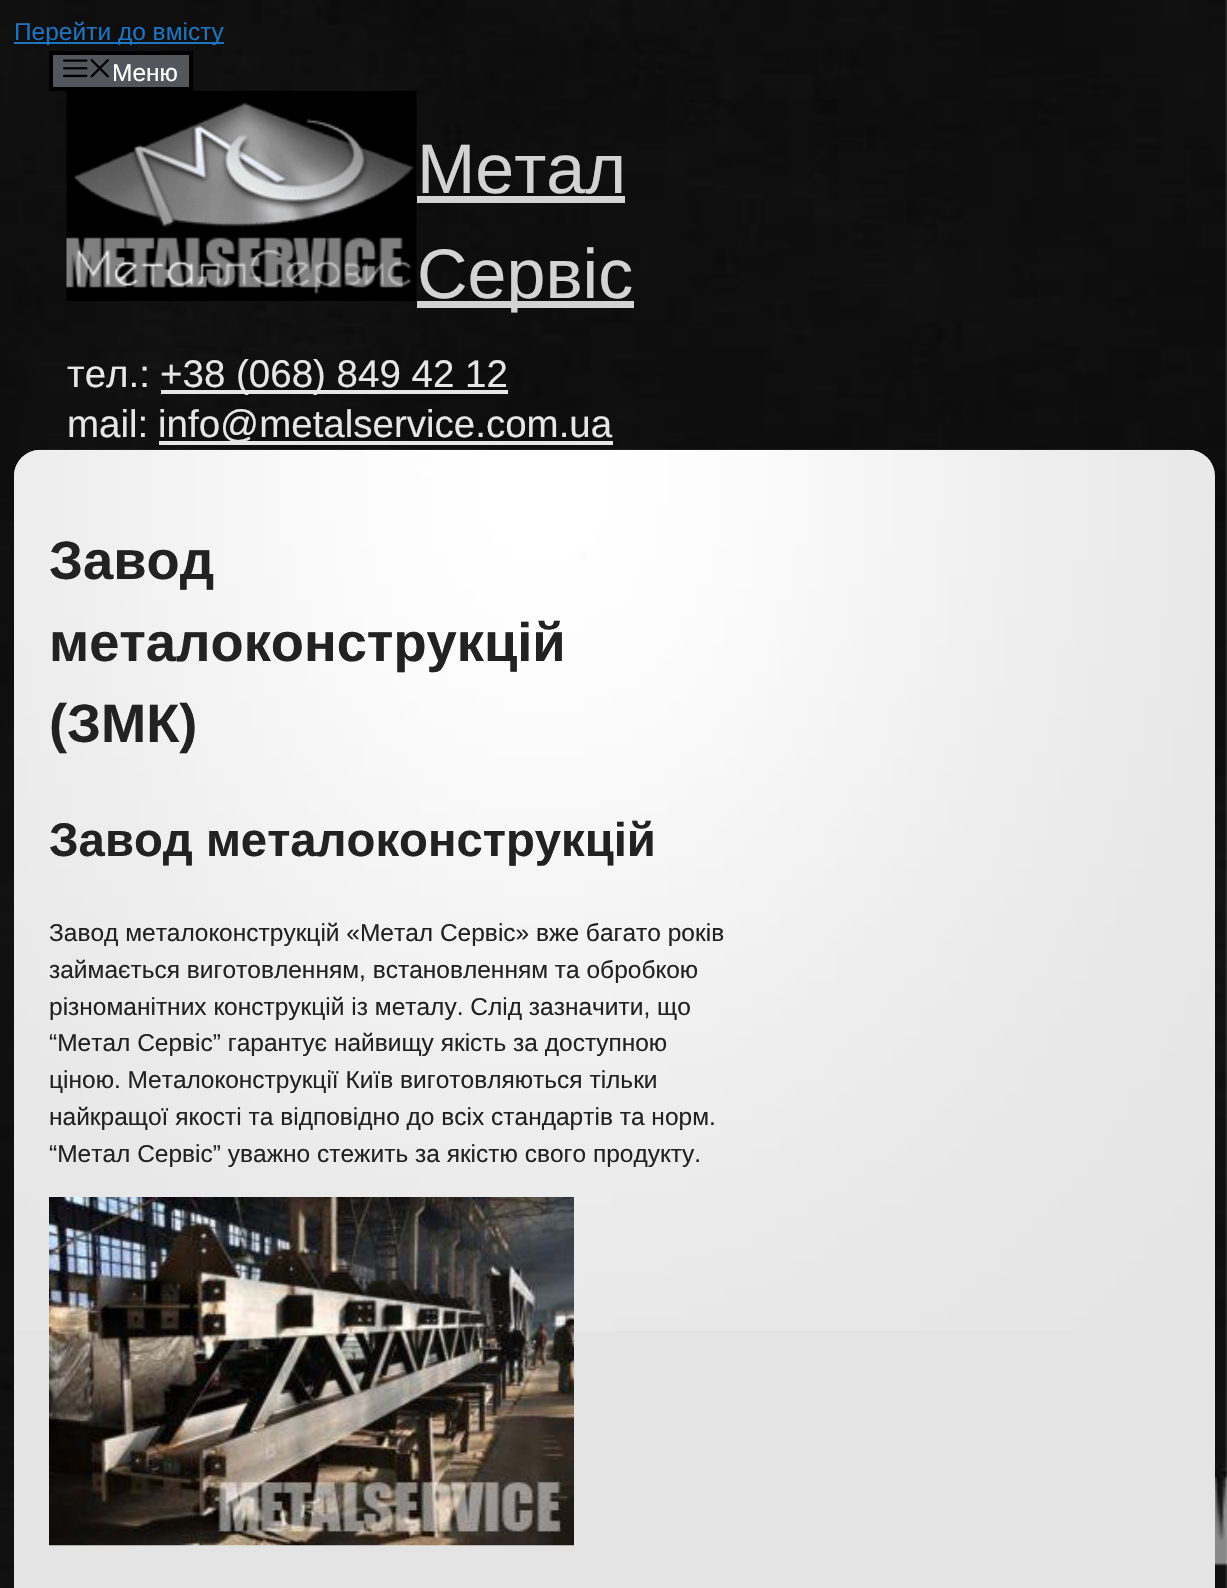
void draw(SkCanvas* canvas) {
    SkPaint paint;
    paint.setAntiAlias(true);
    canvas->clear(0xFFFFFFFF);
    canvas->drawImageRect(SkImages::DeferredFromEncodedData(SkData::MakeFromFileName("img1.png")), SkRect::MakeXYWH(0, 0, 1227, 1588), SkSamplingOptions());
    paint.setColor(0xFF1E73BE);
    canvas->drawRect(SkRect::MakeXYWH(14, 42, 210, 2), paint);
    SkFont font1(fontMgr->matchFamilyStyle("Liberation Sans", SkFontStyle::Normal()), 24.5f);
    font1.setSubpixel(true);
    canvas->drawString("Перейти до вмісту", 14, 40, font1, paint);
    paint.setColor(0xFF55555E);
    canvas->drawRect(SkRect::MakeXYWH(51, 53, 140, 36), paint);
    paint.setStyle(SkPaint::kStroke_Style);
    paint.setStrokeWidth(4);
    paint.setColor(0xFF000000);
    canvas->drawRect(SkRect::MakeXYWH(51, 53, 140, 36), paint);
    canvas->drawImageRect(SkImages::DeferredFromEncodedData(SkData::MakeFromFileName("img2.png")), SkRect::MakeXYWH(63, 59, 25, 19), SkSamplingOptions());
    canvas->drawImageRect(SkImages::DeferredFromEncodedData(SkData::MakeFromFileName("img3.png")), SkRect::MakeXYWH(90, 59, 19, 19), SkSamplingOptions());
    paint.setStyle(SkPaint::kFill_Style);
    paint.setColor(0xFFFFFFFF);
    canvas->drawString("Меню", 112, 81, font1, paint);
    canvas->drawImageRect(SkImages::DeferredFromEncodedData(SkData::MakeFromFileName("img4.png")), SkRect::MakeXYWH(66, 91, 351, 210), SkSamplingOptions());
    SkFont font2(fontMgr->matchFamilyStyle("Liberation Sans", SkFontStyle::Normal()), 70);
    font2.setSubpixel(true);
    paint.setColor(0xFFD3D3D3);
    canvas->drawString("Метал", 417, 193, font2, paint);
    canvas->drawRect(SkRect::MakeXYWH(417, 196, 208, 7), paint);
    canvas->drawRect(SkRect::MakeXYWH(417, 301, 217, 7), paint);
    canvas->drawString("Сервіс", 417, 298, font2, paint);
    SkFont font3(fontMgr->matchFamilyStyle("Liberation Sans", SkFontStyle::Normal()), 38.5f);
    font3.setSubpixel(true);
    paint.setColor(0xFFE6E6E6);
    canvas->drawString("тел.:", 67, 387, font3, paint);
    canvas->drawRect(SkRect::MakeXYWH(161, 390, 347, 4), paint);
    canvas->drawString("+38 (068) 849 42 12", 160, 387, font3, paint);
    canvas->drawString("mail:", 67, 437, font3, paint);
    canvas->drawRect(SkRect::MakeXYWH(159, 441, 454, 4), paint);
    canvas->drawString("info@metalservice.com.ua", 158, 437, font3, paint);
    paint.setColor(0xFFE4E4E4);
    canvas->drawRoundRect(SkRect::MakeXYWH(14, 450, 1201, 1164), 26, 26, paint);
    canvas->drawImageRect(SkImages::DeferredFromEncodedData(SkData::MakeFromFileName("img5.png")), SkRect::MakeXYWH(14, 449, 1201, 882), SkSamplingOptions());
    SkFont font4(fontMgr->matchFamilyStyle("Liberation Sans", SkFontStyle::Bold()), 54.25f);
    font4.setSubpixel(true);
    paint.setColor(0xFF222222);
    canvas->drawString("Завод", 49, 579, font4, paint);
    canvas->drawString("металоконструкцій", 49, 661, font4, paint);
    canvas->drawString("(ЗМК)", 49, 742, font4, paint);
    SkFont font5(fontMgr->matchFamilyStyle("Liberation Sans", SkFontStyle::Bold()), 47.25f);
    font5.setSubpixel(true);
    canvas->drawString("Завод металоконструкцій", 49, 856, font5, paint);
    canvas->drawString("Завод металоконструкцій «Метал Сервіс» вже багато років", 49, 941, font1, paint);
    canvas->drawString("займається виготовленням, встановленням та обробкою", 49, 978, font1, paint);
    canvas->drawString("різноманітних конструкцій із металу. Слід зазначити, що", 49, 1015, font1, paint);
    canvas->drawString("“Метал Сервіс” гарантує найвищу якість за доступною", 49, 1051, font1, paint);
    canvas->drawString("ціною. Металоконструкції Київ виготовляються тільки", 49, 1088, font1, paint);
    canvas->drawString("найкращої якості та відповідно до всіх стандартів та норм.", 49, 1125, font1, paint);
    canvas->drawString("“Метал Сервіс” уважно стежить за якістю свого продукту.", 49, 1162, font1, paint);
    canvas->drawImageRect(SkImages::DeferredFromEncodedData(SkData::MakeFromFileName("img6.png")), SkRect::MakeXYWH(49, 1197, 525, 349), SkSamplingOptions());
}
